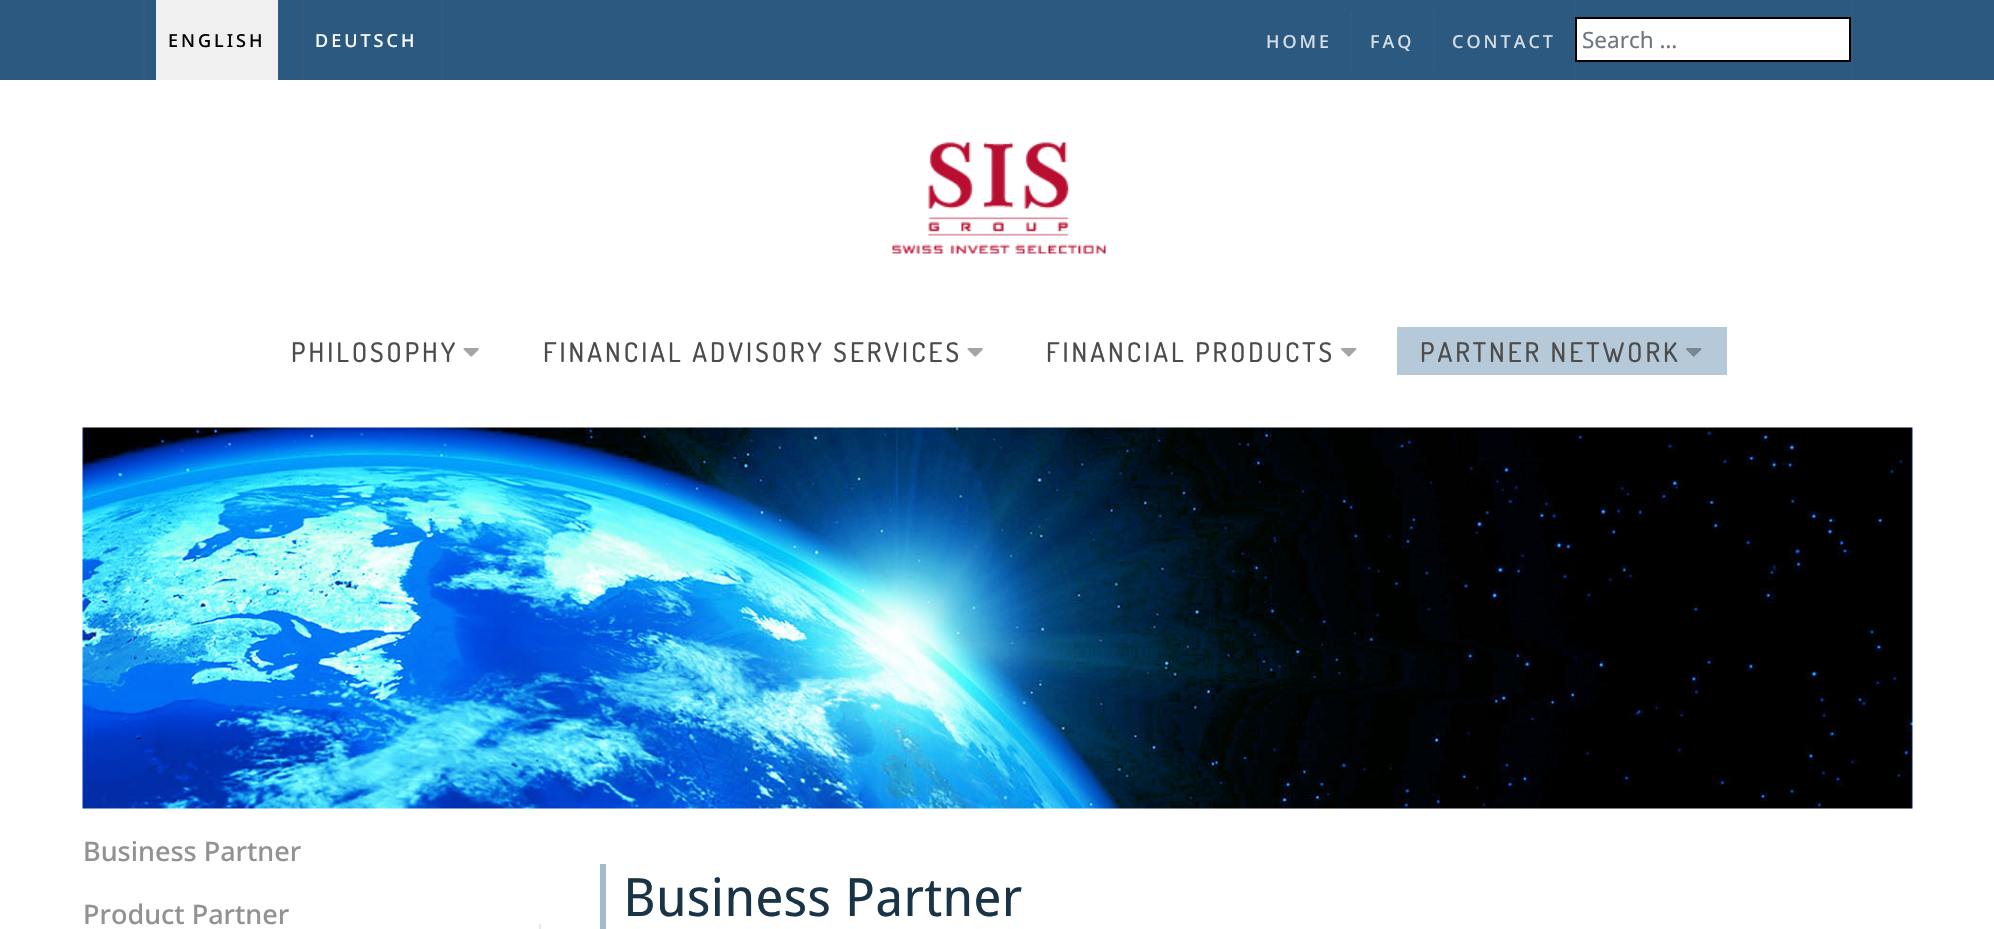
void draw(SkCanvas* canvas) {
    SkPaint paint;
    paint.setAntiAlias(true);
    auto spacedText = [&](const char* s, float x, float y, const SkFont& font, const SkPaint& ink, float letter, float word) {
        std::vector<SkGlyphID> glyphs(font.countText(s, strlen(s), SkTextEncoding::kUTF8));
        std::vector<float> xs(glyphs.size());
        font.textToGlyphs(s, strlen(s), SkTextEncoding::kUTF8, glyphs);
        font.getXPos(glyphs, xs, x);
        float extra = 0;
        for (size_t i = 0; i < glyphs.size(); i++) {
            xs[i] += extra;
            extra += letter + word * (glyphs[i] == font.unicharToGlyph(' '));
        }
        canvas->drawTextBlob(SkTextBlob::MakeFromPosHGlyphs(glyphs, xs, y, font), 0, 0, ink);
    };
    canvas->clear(0xFFFFFFFF);
    paint.setColor(0xFF2C5980);
    canvas->drawRect(SkRect::MakeXYWH(0, 0, 1994, 80), paint);
    paint.setColor(0xFF345B7C);
    canvas->drawRect(SkRect::MakeXYWH(441, 0, 2, 80), paint);
    canvas->drawRect(SkRect::MakeXYWH(143, 0, 2, 80), paint);
    paint.setColor(0xFFF0F0F0);
    canvas->drawRect(SkRect::MakeXYWH(156, 0, 122, 80), paint);
    SkFont font1(fontMgr->matchFamilyStyle("Noto Sans", SkFontStyle(500, SkFontStyle::kNormal_Width, SkFontStyle::kUpright_Slant)), 18);
    font1.setSubpixel(true);
    paint.setColor(0xFF000000);
    spacedText("ENGLISH", 168, 47, font1, paint, 3, 0);
    paint.setColor(0xFF345B7C);
    canvas->drawRect(SkRect::MakeXYWH(302, 0, 2, 80), paint);
    paint.setColor(0xFFFFFFFF);
    spacedText("DEUTSCH", 315, 47, font1, paint, 3, 0);
    paint.setColor(0xFFD5DEE6);
    spacedText("HOME", 1266, 48, font1, paint, 3, 0);
    paint.setColor(0xFF345B7C);
    canvas->drawRect(SkRect::MakeXYWH(1350, 12, 2, 59), paint);
    paint.setColor(0xFFD5DEE6);
    spacedText("FAQ", 1370, 48, font1, paint, 3, 0);
    paint.setColor(0xFF345B7C);
    canvas->drawRect(SkRect::MakeXYWH(1433, 12, 2, 59), paint);
    paint.setColor(0xFFD5DEE6);
    spacedText("CONTACT", 1452, 48, font1, paint, 3, 0);
    paint.setColor(0xFF345B7C);
    canvas->drawRect(SkRect::MakeXYWH(1851, 0, 2, 80), paint);
    canvas->drawRect(SkRect::MakeXYWH(1574, 0, 2, 80), paint);
    paint.setColor(0xFFFFFFFF);
    canvas->drawRect(SkRect::MakeXYWH(1576, 18, 274, 43), paint);
    paint.setStyle(SkPaint::kStroke_Style);
    paint.setStrokeWidth(2);
    paint.setColor(0xFF000000);
    canvas->drawRect(SkRect::MakeXYWH(1576, 18, 274, 43), paint);
    SkFont font2(fontMgr->matchFamilyStyle("Noto Sans", SkFontStyle::Normal()), 22.5f);
    font2.setSubpixel(true);
    paint.setStyle(SkPaint::kFill_Style);
    paint.setColor(0xFF6D757E);
    canvas->drawString("Search …", 1582, 48, font2, paint);
    canvas->drawImageRect(SkImages::DeferredFromEncodedData(SkData::MakeFromFileName("img1.png")), SkRect::MakeXYWH(892, 142, 214, 112), SkSamplingOptions());
    SkFont font3(fontMgr->matchFamilyStyle("Dosis", SkFontStyle(500, SkFontStyle::kNormal_Width, SkFontStyle::kUpright_Slant)), 27);
    font3.setSubpixel(true);
    paint.setColor(0xFF4C4C4C);
    spacedText("PHILOSOPHY", 291, 362, font3, paint, 3, 0);
    canvas->drawImageRect(SkImages::DeferredFromEncodedData(SkData::MakeFromFileName("img2.png")), SkRect::MakeXYWH(463, 348, 16, 9), SkSamplingOptions());
    spacedText("FINANCIAL ADVISORY SERVICES", 543, 362, font3, paint, 3, 0);
    canvas->drawImageRect(SkImages::DeferredFromEncodedData(SkData::MakeFromFileName("img2.png")), SkRect::MakeXYWH(967, 348, 16, 9), SkSamplingOptions());
    spacedText("FINANCIAL PRODUCTS", 1046, 362, font3, paint, 3, 0);
    canvas->drawImageRect(SkImages::DeferredFromEncodedData(SkData::MakeFromFileName("img3.png")), SkRect::MakeXYWH(1341, 348, 16, 9), SkSamplingOptions());
    paint.setColor(0xFFB5C9D9);
    canvas->drawRect(SkRect::MakeXYWH(1397, 327, 330, 48), paint);
    paint.setColor(0xFF4C4C4C);
    spacedText("PARTNER NETWORK", 1420, 362, font3, paint, 3, 0);
    canvas->drawImageRect(SkImages::DeferredFromEncodedData(SkData::MakeFromFileName("img4.png")), SkRect::MakeXYWH(1686, 348, 16, 9), SkSamplingOptions());
    canvas->drawImageRect(SkImages::DeferredFromEncodedData(SkData::MakeFromFileName("img5.png")), SkRect::MakeXYWH(82, 427, 1831, 382), SkSamplingOptions());
    SkFont font4(fontMgr->matchFamilyStyle("Noto Sans", SkFontStyle(500, SkFontStyle::kNormal_Width, SkFontStyle::kUpright_Slant)), 27);
    font4.setSubpixel(true);
    paint.setColor(0xFF929292);
    canvas->drawString("Business Partner", 83, 861, font4, paint);
    canvas->drawString("Product Partner", 83, 924, font4, paint);
    paint.setColor(0xFFE9E9E9);
    canvas->drawRect(SkRect::MakeXYWH(539, 924, 2, 5), paint);
    paint.setColor(0xFFA2BCCF);
    canvas->drawRect(SkRect::MakeXYWH(600, 864, 6, 65), paint);
    SkFont font5(fontMgr->matchFamilyStyle("Droid Sans", SkFontStyle::Normal()), 52.75f);
    font5.setSubpixel(true);
    paint.setColor(0xFF183446);
    canvas->drawString("Business Partner", 623, 916, font5, paint);
}
